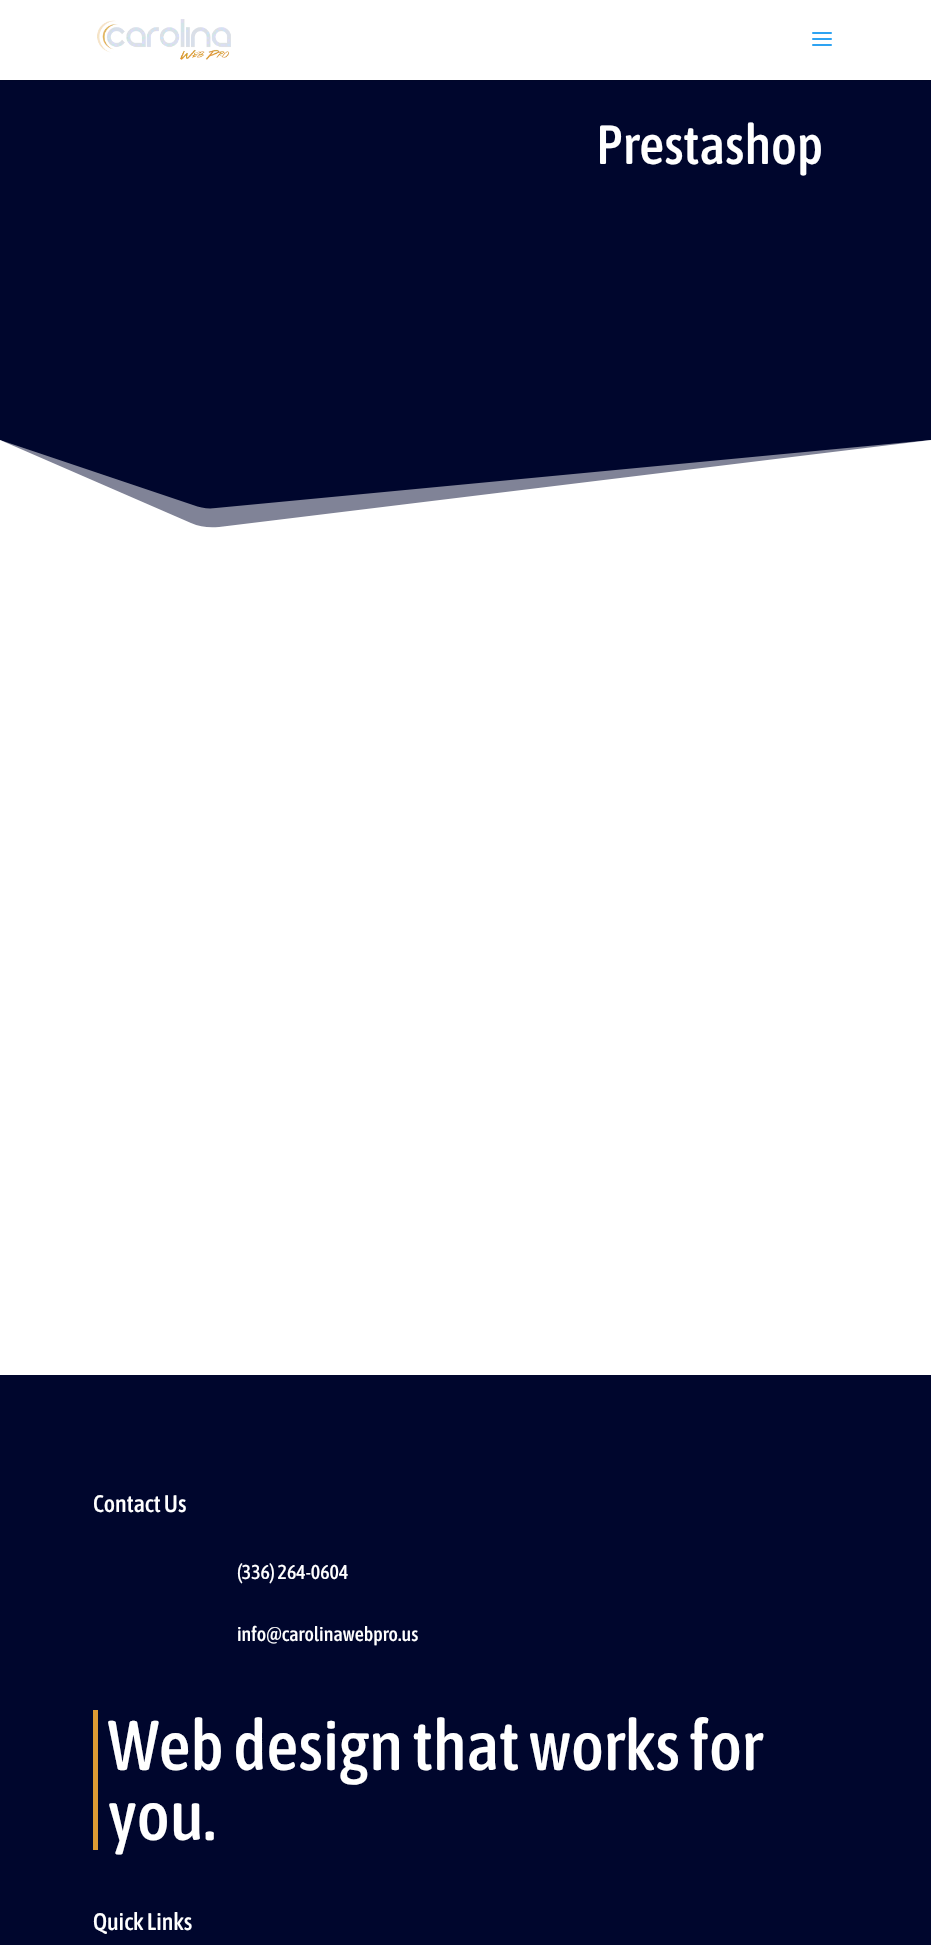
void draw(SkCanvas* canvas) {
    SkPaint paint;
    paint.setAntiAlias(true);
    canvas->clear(0xFFFFFFFF);
    paint.setColor(0xFF00062D);
    canvas->drawRect(SkRect::MakeXYWH(0, 80, 931, 448), paint);
    paint.setColor(0x1A000000);
    canvas->drawRect(SkRect::MakeXYWH(0, 80, 931, 1), paint);
    canvas->drawImageRect(SkImages::DeferredFromEncodedData(SkData::MakeFromFileName("img1.png")), SkRect::MakeXYWH(97, 19, 134, 41), SkSamplingOptions());
    canvas->drawImageRect(SkImages::DeferredFromEncodedData(SkData::MakeFromFileName("img2.png")), SkRect::MakeXYWH(812, 32, 20, 14), SkSamplingOptions());
    SkFont font1(fontMgr->matchFamilyStyle("Asap Condensed", SkFontStyle(500, SkFontStyle::kNormal_Width, SkFontStyle::kUpright_Slant)), 55);
    font1.setSubpixel(true);
    paint.setColor(0xFFFFFFFF);
    canvas->drawString("Prestashop", 596, 164, font1, paint);
    paint.setColor(0x80FFFFFF);
    canvas->drawPath(SkPathBuilder().moveTo(0, 440).lineTo(193, 505).cubicTo(201, 508, 208, 509, 216, 508).lineTo(931, 440).lineTo(931, 540).lineTo(0, 540).close().detach(), paint);
    paint.setColor(0xFFFFFFFF);
    canvas->drawPath(SkPathBuilder().moveTo(0, 440).lineTo(191, 523).cubicTo(200, 527, 209, 528, 219, 527).lineTo(931, 440).lineTo(931, 540).lineTo(0, 540).close().detach(), paint);
    paint.setColor(0xFF00062D);
    canvas->drawRect(SkRect::MakeXYWH(0, 1375, 931, 570), paint);
    SkFont font2(fontMgr->matchFamilyStyle("Asap Condensed", SkFontStyle(500, SkFontStyle::kNormal_Width, SkFontStyle::kUpright_Slant)), 24);
    font2.setSubpixel(true);
    paint.setColor(0xFFFFFFFF);
    canvas->drawString("Contact Us", 93, 1512, font2, paint);
    SkFont font3(fontMgr->matchFamilyStyle("Asap Condensed", SkFontStyle(500, SkFontStyle::kNormal_Width, SkFontStyle::kUpright_Slant)), 20);
    font3.setSubpixel(true);
    canvas->drawString("(336) 264-0604", 237, 1579, font3, paint);
    canvas->drawString("info@carolinawebpro.us", 237, 1641, font3, paint);
    paint.setColor(0xFFDD9933);
    canvas->drawRect(SkRect::MakeXYWH(93, 1710, 5, 140), paint);
    SkFont font4(fontMgr->matchFamilyStyle("Asap Condensed", SkFontStyle(500, SkFontStyle::kNormal_Width, SkFontStyle::kUpright_Slant)), 70);
    font4.setSubpixel(true);
    paint.setColor(0xFFFFFFFF);
    canvas->drawString("Web design that works for", 108, 1770, font4, paint);
    canvas->drawString("you.", 108, 1840, font4, paint);
    canvas->drawString("Quick Links", 93, 1930, font2, paint);
}
